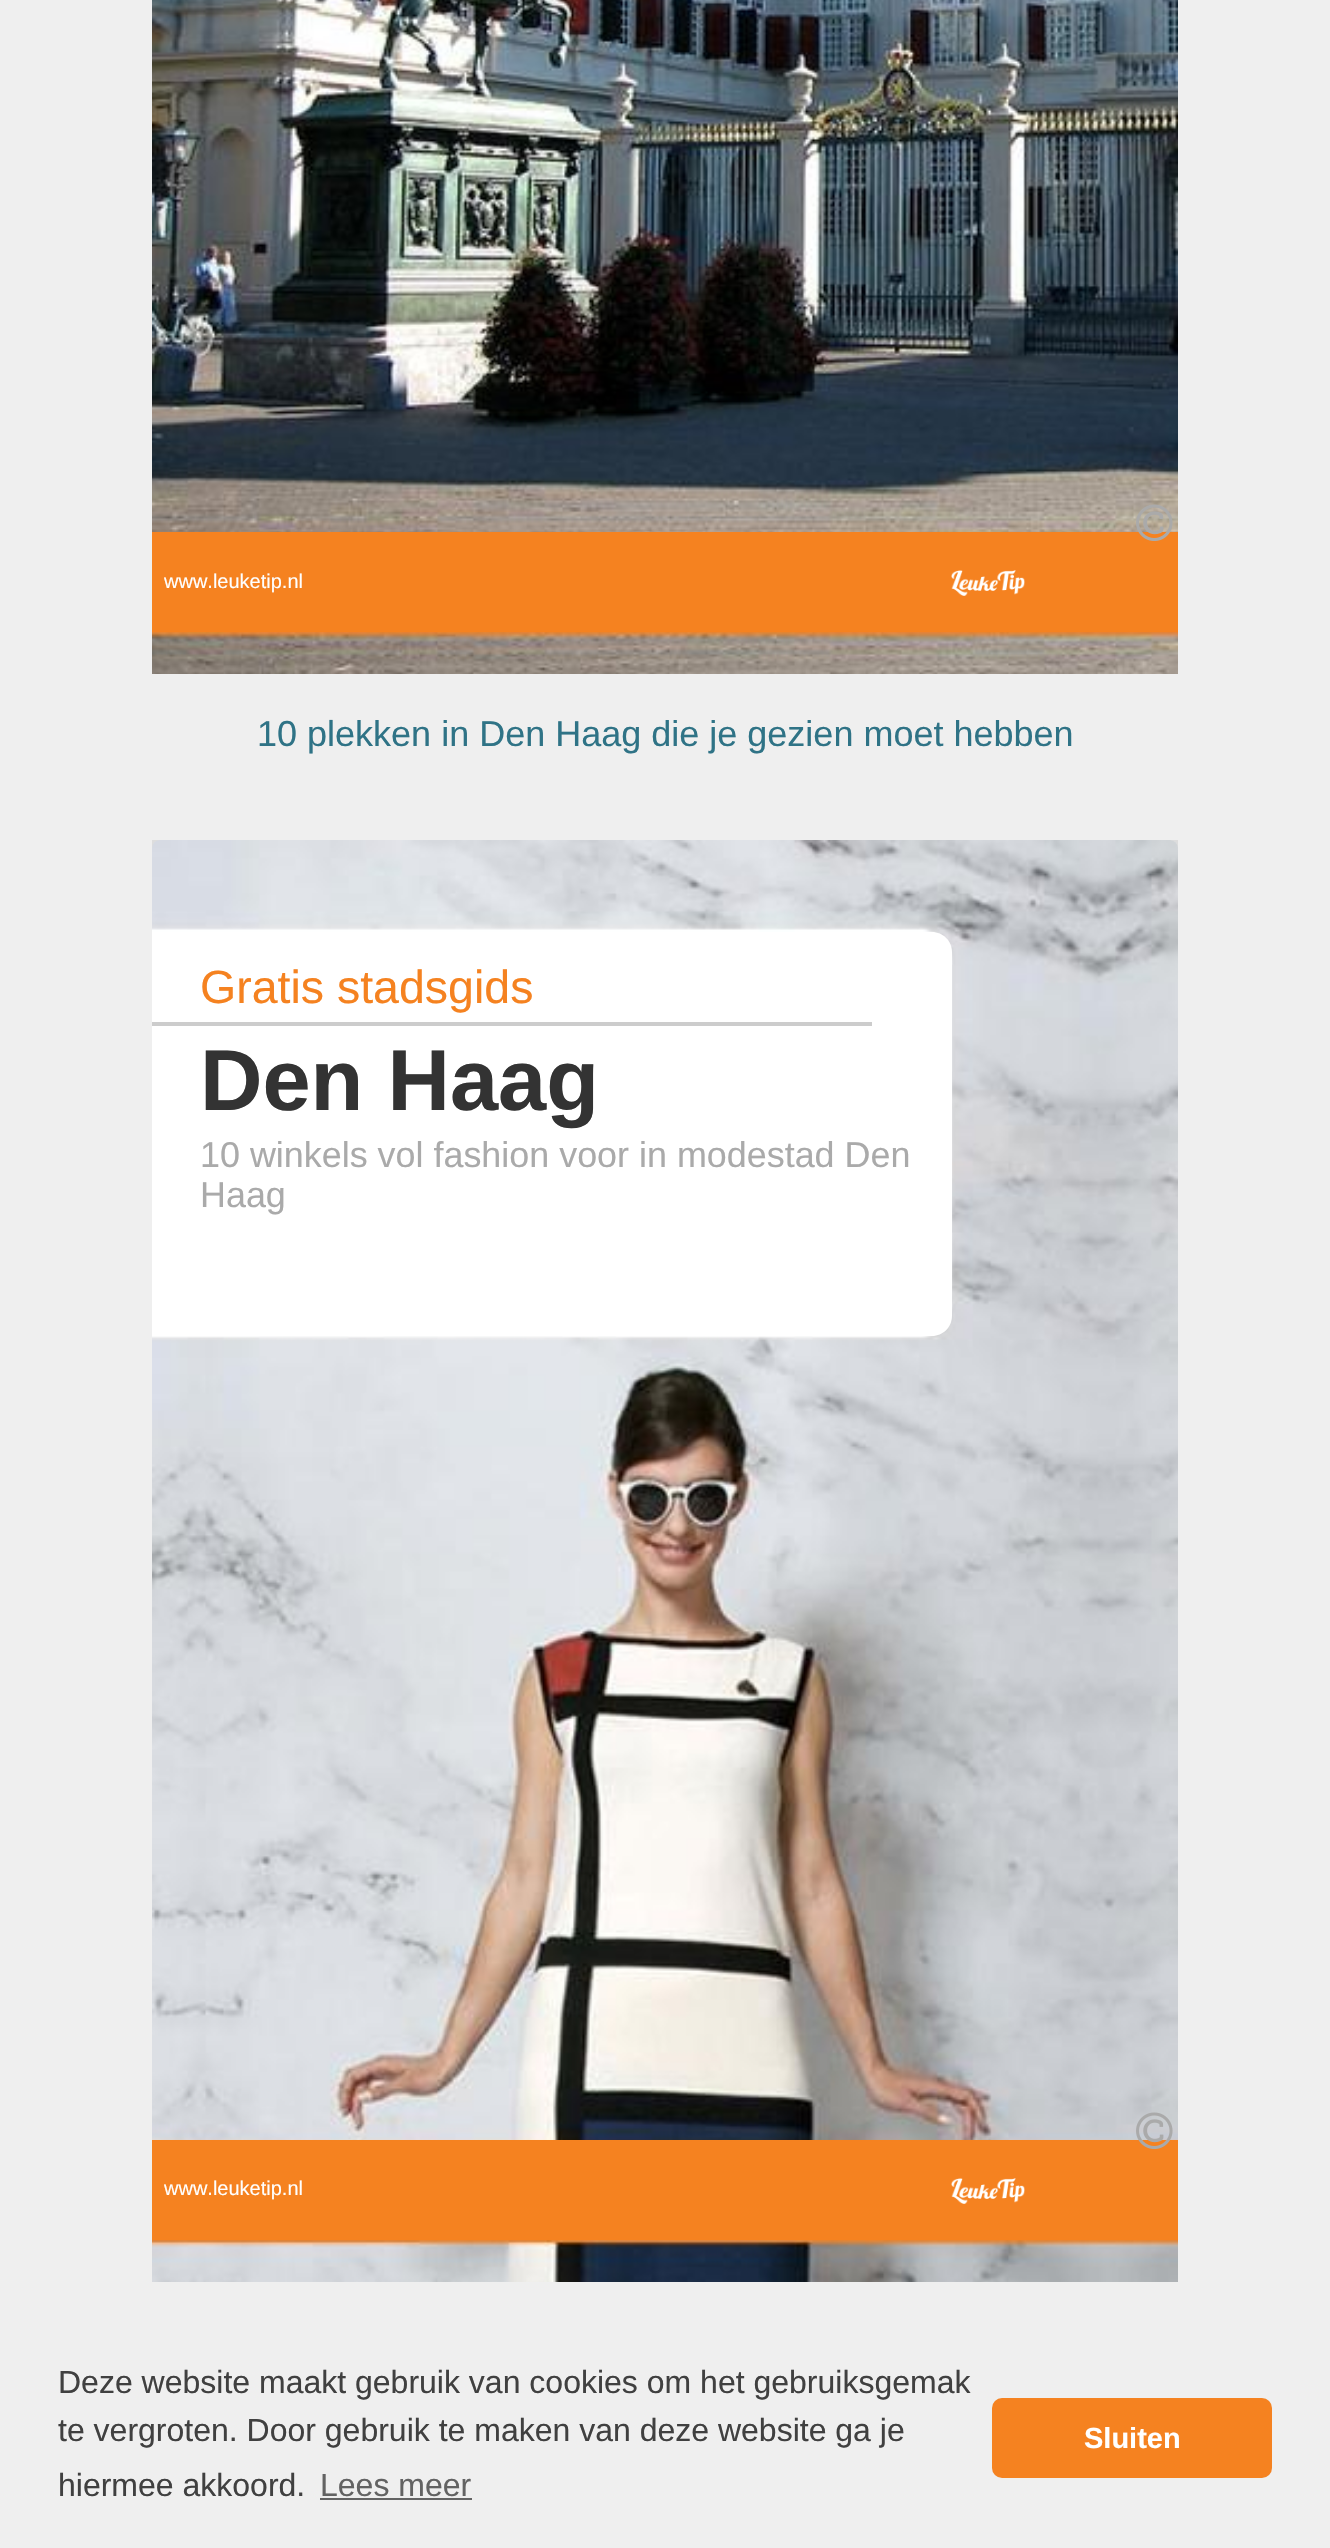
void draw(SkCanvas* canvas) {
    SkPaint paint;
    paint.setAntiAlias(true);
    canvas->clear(0xFFEFEFEF);
    canvas->drawImageRect(SkImages::DeferredFromEncodedData(SkData::MakeFromFileName("img2.png")), SkRect::MakeXYWH(152, 0, 1026, 674), SkSamplingOptions());
    paint.setColor(0xFFF58220);
    canvas->drawRect(SkRect::MakeXYWH(152, 532, 1026, 100), paint);
    canvas->drawImageRect(SkImages::DeferredFromEncodedData(SkData::MakeFromFileName("img1.png")), SkRect::MakeXYWH(1136, 504, 37, 37), SkSamplingOptions());
    SkFont font1(fontMgr->matchFamilyStyle("Liberation Sans", SkFontStyle::Normal()), 20);
    font1.setSubpixel(true);
    paint.setColor(0xFFFFFFFF);
    canvas->drawString("www.leuketip.nl", 164, 588, font1, paint);
    canvas->drawImageRect(SkImages::DeferredFromEncodedData(SkData::MakeFromFileName("img3.png")), SkRect::MakeXYWH(951, 570, 74, 26), SkSamplingOptions());
    SkFont font2(fontMgr->matchFamilyStyle("Liberation Sans", SkFontStyle::Normal()), 36);
    font2.setSubpixel(true);
    paint.setColor(0xFF2F7386);
    canvas->drawString("10 plekken in Den Haag die je gezien moet hebben", 257, 746, font2, paint);
    paint.setColor(0xFFDDDDDD);
    canvas->drawRect(SkRect::MakeXYWH(152, 840, 1026, 8), paint);
    canvas->drawImageRect(SkImages::DeferredFromEncodedData(SkData::MakeFromFileName("img4.png")), SkRect::MakeXYWH(152, 840, 1026, 1442), SkSamplingOptions());
    paint.setColor(0xFFFFFFFF);
    canvas->drawPath(SkPathBuilder().moveTo(152, 932).lineTo(932, 932).cubicTo(943, 932, 952, 941, 952, 952).lineTo(952, 1316).cubicTo(952, 1327, 943, 1336, 932, 1336).lineTo(152, 1336).close().detach(), paint);
    paint.setColor(0xFFCCCCCC);
    canvas->drawRect(SkRect::MakeXYWH(152, 1022, 720, 4), paint);
    SkFont font3(fontMgr->matchFamilyStyle("Liberation Sans", SkFontStyle::Normal()), 46.5f);
    font3.setSubpixel(true);
    paint.setColor(0xFFF58220);
    canvas->drawString("Gratis stadsgids", 200, 1003, font3, paint);
    SkFont font4(fontMgr->matchFamilyStyle("Liberation Sans", SkFontStyle::Bold()), 86.5f);
    font4.setSubpixel(true);
    paint.setColor(0xFF333333);
    canvas->drawString("Den Haag", 200, 1110, font4, paint);
    SkFont font5(fontMgr->matchFamilyStyle("Liberation Sans", SkFontStyle::Normal()), 35.9f);
    font5.setSubpixel(true);
    paint.setColor(0xFFAAAAAA);
    canvas->drawString("10 winkels vol fashion voor in modestad Den", 200, 1167, font5, paint);
    canvas->drawString("Haag", 200, 1207, font5, paint);
    paint.setColor(0xFFF58220);
    canvas->drawRect(SkRect::MakeXYWH(152, 2140, 1026, 100), paint);
    paint.setColor(0xFFFFFFFF);
    canvas->drawString("www.leuketip.nl", 164, 2195, font1, paint);
    canvas->drawImageRect(SkImages::DeferredFromEncodedData(SkData::MakeFromFileName("img3.png")), SkRect::MakeXYWH(951, 2178, 74, 26), SkSamplingOptions());
    canvas->drawImageRect(SkImages::DeferredFromEncodedData(SkData::MakeFromFileName("img5.png")), SkRect::MakeXYWH(1136, 2112, 37, 37), SkSamplingOptions());
    SkFont font6(fontMgr->matchFamilyStyle("Liberation Sans", SkFontStyle::Normal()), 32);
    font6.setSubpixel(true);
    paint.setColor(0xFF404040);
    canvas->drawString("Deze website maakt gebruik van cookies om het gebruiksgemak", 58, 2393, font6, paint);
    canvas->drawString("te vergroten. Door gebruik te maken van deze website ga je", 58, 2441, font6, paint);
    canvas->drawString("hiermee akkoord.", 58, 2496, font6, paint);
    paint.setColor(0xFF636363);
    canvas->drawString("Lees meer", 320, 2496, font6, paint);
    canvas->drawRect(SkRect::MakeXYWH(320, 2498, 152, 2), paint);
    paint.setColor(0xFFF58220);
    canvas->drawRoundRect(SkRect::MakeXYWH(992, 2398, 280, 80), 10, 10, paint);
    SkFont font7(fontMgr->matchFamilyStyle("Liberation Sans", SkFontStyle::Bold()), 29);
    font7.setSubpixel(true);
    paint.setColor(0xFFFFFFFF);
    canvas->drawString("Sluiten", 1084, 2448, font7, paint);
}
